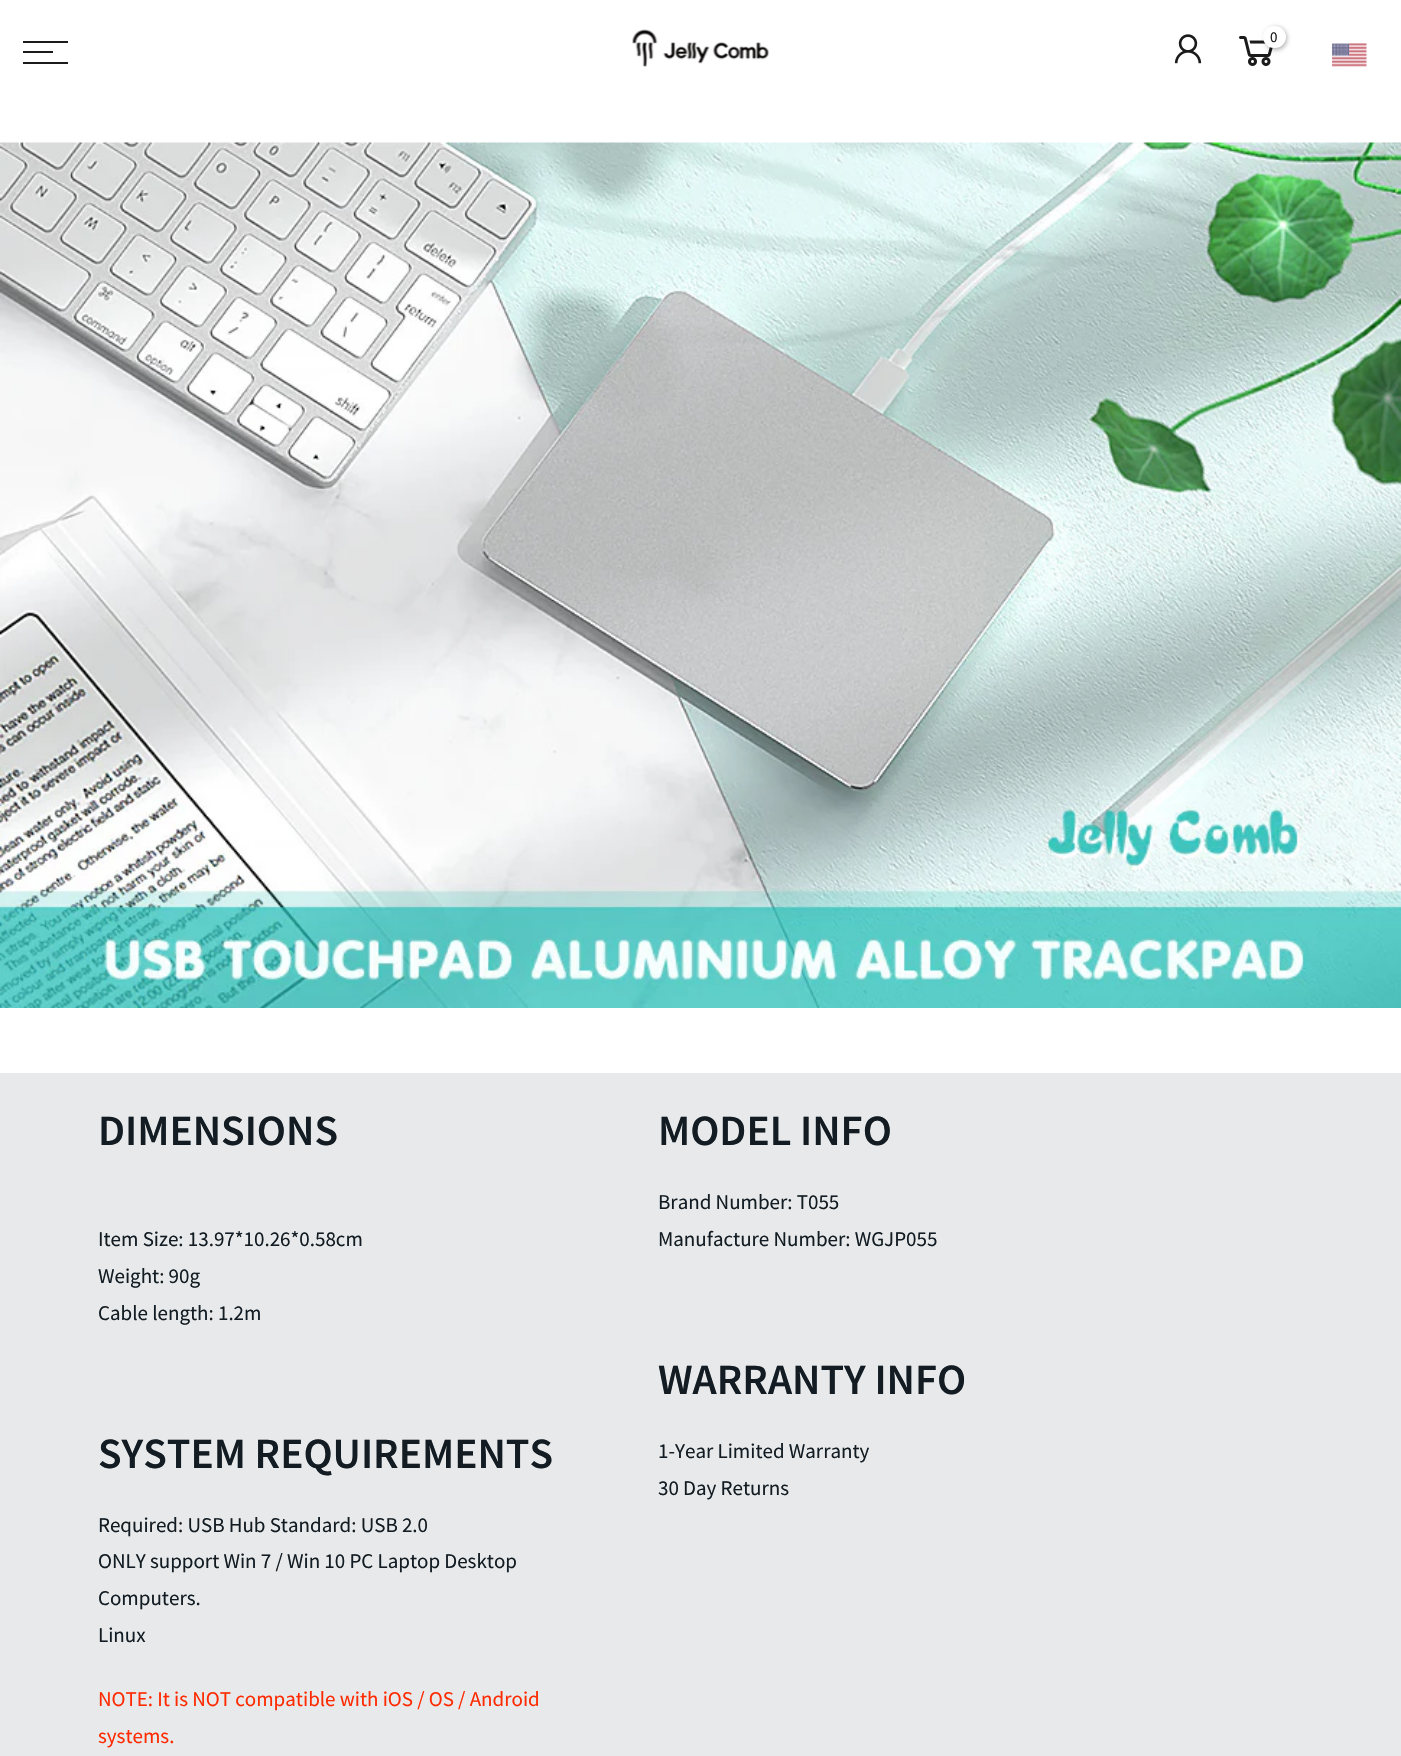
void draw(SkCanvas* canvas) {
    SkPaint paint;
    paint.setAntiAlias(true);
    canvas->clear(0xFFFFFFFF);
    canvas->drawImageRect(SkImages::DeferredFromEncodedData(SkData::MakeFromFileName("img1.png")), SkRect::MakeXYWH(632, 29, 137, 38), SkSamplingOptions());
    canvas->drawImageRect(SkImages::DeferredFromEncodedData(SkData::MakeFromFileName("img2.png")), SkRect::MakeXYWH(1174, 34, 28, 30), SkSamplingOptions());
    canvas->drawImageRect(SkImages::DeferredFromEncodedData(SkData::MakeFromFileName("img3.png")), SkRect::MakeXYWH(1239, 36, 34, 30), SkSamplingOptions());
    paint.setColor(0x4D000000);
    paint.setMaskFilter(SkMaskFilter::MakeBlur(kNormal_SkBlurStyle, 2));
    canvas->drawRoundRect(SkRect::MakeXYWH(1265, 27, 22, 23), 11, 11, paint);
    paint.setMaskFilter(nullptr);
    paint.setColor(0xFFFFFFFF);
    canvas->drawRoundRect(SkRect::MakeXYWH(1263, 26, 23, 22), 11, 11, paint);
    SkFont font1(fontMgr->matchFamilyStyle("Source Sans Pro", SkFontStyle::Normal()), 15);
    font1.setSubpixel(true);
    paint.setColor(0xFF1C1B1B);
    canvas->drawString("0", 1270, 42, font1, paint);
    canvas->drawImageRect(SkImages::DeferredFromEncodedData(SkData::MakeFromFileName("img4.png")), SkRect::MakeXYWH(1332, 43, 35, 24), SkSamplingOptions());
    canvas->drawRect(SkRect::MakeXYWH(23, 41, 45, 2), paint);
    canvas->drawRect(SkRect::MakeXYWH(23, 51, 30, 2), paint);
    canvas->drawRect(SkRect::MakeXYWH(23, 62, 45, 2), paint);
    canvas->drawImageRect(SkImages::DeferredFromEncodedData(SkData::MakeFromFileName("img5.png")), SkRect::MakeXYWH(0, 142, 1401, 866), SkSamplingOptions());
    paint.setColor(0xFFE7E9EB);
    canvas->drawRect(SkRect::MakeXYWH(0, 1073, 1401, 683), paint);
    SkFont font2(fontMgr->matchFamilyStyle("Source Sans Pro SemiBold", SkFontStyle(600, SkFontStyle::kNormal_Width, SkFontStyle::kUpright_Slant)), 43.25f);
    font2.setSubpixel(true);
    paint.setColor(0xFF121C22);
    canvas->drawString("DIMENSIONS", 98, 1145, font2, paint);
    SkFont font3(fontMgr->matchFamilyStyle("Source Sans Pro", SkFontStyle::Normal()), 21);
    font3.setSubpixel(true);
    canvas->drawString("Item Size: 13.97*10.26*0.58cm", 98, 1246, font3, paint);
    canvas->drawString("Weight: 90g", 98, 1283, font3, paint);
    canvas->drawString("Cable length: 1.2m", 98, 1320, font3, paint);
    canvas->drawString("SYSTEM REQUIREMENTS", 98, 1468, font2, paint);
    canvas->drawString("Required: USB Hub Standard: USB 2.0", 98, 1532, font3, paint);
    canvas->drawString("ONLY support Win 7 / Win 10 PC Laptop Desktop", 98, 1568, font3, paint);
    canvas->drawString("Computers.", 98, 1605, font3, paint);
    canvas->drawString("Linux", 98, 1642, font3, paint);
    paint.setColor(0xFFFF2A00);
    canvas->drawString("NOTE: It is NOT compatible with iOS / OS / Android", 98, 1706, font3, paint);
    canvas->drawString("systems.", 98, 1743, font3, paint);
    paint.setColor(0xFF121C22);
    canvas->drawString("MODEL INFO", 658, 1145, font2, paint);
    canvas->drawString("Brand Number: T055", 658, 1209, font3, paint);
    canvas->drawString("Manufacture Number: WGJP055", 658, 1246, font3, paint);
    canvas->drawString("WARRANTY INFO", 658, 1394, font2, paint);
    canvas->drawString("1-Year Limited Warranty", 658, 1458, font3, paint);
    canvas->drawString("30 Day Returns", 658, 1495, font3, paint);
}
